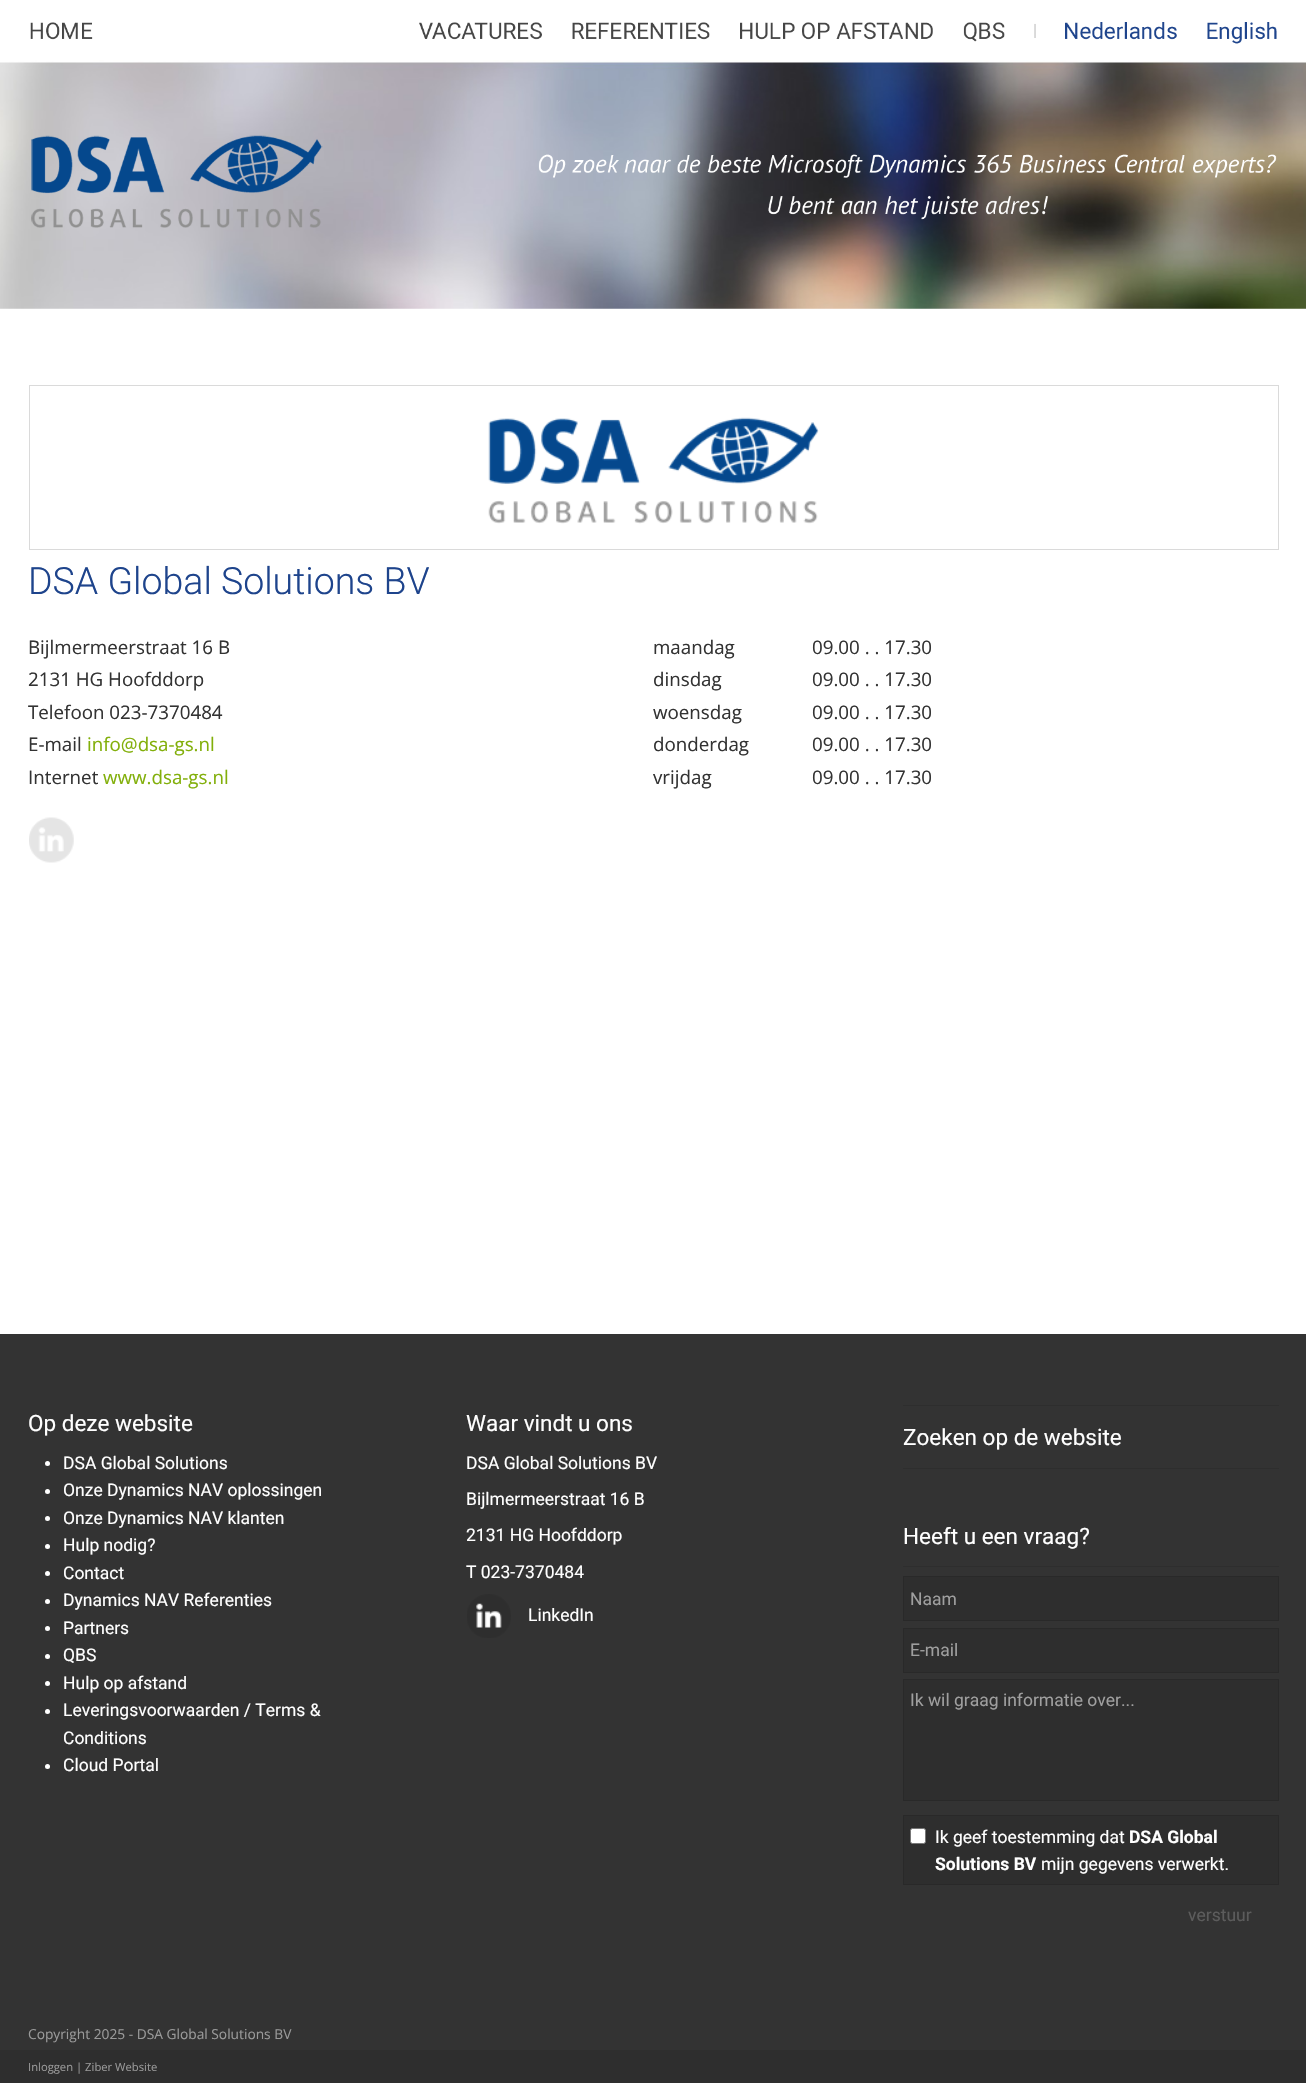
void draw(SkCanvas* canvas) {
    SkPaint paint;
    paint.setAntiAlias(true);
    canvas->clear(0xFFFFFFFF);
    canvas->drawImageRect(SkImages::DeferredFromEncodedData(SkData::MakeFromFileName("img1.png")), SkRect::MakeXYWH(0, 60, 1306, 249), SkSamplingOptions());
    canvas->drawImageRect(SkImages::DeferredFromEncodedData(SkData::MakeFromFileName("img2.png")), SkRect::MakeXYWH(30, 22, 63, 18), SkSamplingOptions());
    canvas->drawImageRect(SkImages::DeferredFromEncodedData(SkData::MakeFromFileName("img3.png")), SkRect::MakeXYWH(419, 22, 123, 18), SkSamplingOptions());
    canvas->drawImageRect(SkImages::DeferredFromEncodedData(SkData::MakeFromFileName("img4.png")), SkRect::MakeXYWH(572, 22, 138, 18), SkSamplingOptions());
    canvas->drawImageRect(SkImages::DeferredFromEncodedData(SkData::MakeFromFileName("img5.png")), SkRect::MakeXYWH(740, 22, 193, 18), SkSamplingOptions());
    canvas->drawImageRect(SkImages::DeferredFromEncodedData(SkData::MakeFromFileName("img6.png")), SkRect::MakeXYWH(963, 22, 72, 20), SkSamplingOptions());
    canvas->drawImageRect(SkImages::DeferredFromEncodedData(SkData::MakeFromFileName("img7.png")), SkRect::MakeXYWH(1035, 22, 142, 18), SkSamplingOptions());
    canvas->drawImageRect(SkImages::DeferredFromEncodedData(SkData::MakeFromFileName("img8.png")), SkRect::MakeXYWH(1207, 22, 70, 22), SkSamplingOptions());
    canvas->drawImageRect(SkImages::DeferredFromEncodedData(SkData::MakeFromFileName("img9.png")), SkRect::MakeXYWH(31, 135, 1246, 93), SkSamplingOptions());
    paint.setStyle(SkPaint::kStroke_Style);
    paint.setStrokeWidth(1);
    paint.setColor(0xFFDADADA);
    canvas->drawRect(SkRect::MakeXYWH(29.5f, 385.5f, 1249, 164), paint);
    canvas->drawImageRect(SkImages::DeferredFromEncodedData(SkData::MakeFromFileName("img10.png")), SkRect::MakeXYWH(488, 417, 331, 107), SkSamplingOptions());
    SkFont font1(fontMgr->matchFamilyStyle("Roboto", SkFontStyle(300, SkFontStyle::kNormal_Width, SkFontStyle::kUpright_Slant)), 37.5f);
    font1.setSubpixel(true);
    paint.setStyle(SkPaint::kFill_Style);
    paint.setColor(0xFF1E448C);
    canvas->drawString("DSA Global Solutions BV", 28, 594, font1, paint);
    SkFont font2(fontMgr->matchFamilyStyle("Open Sans", SkFontStyle::Normal()), 18.75f);
    font2.setSubpixel(true);
    paint.setColor(0xFF333333);
    canvas->drawString("Bijlmermeerstraat 16 B", 28, 654, font2, paint);
    canvas->drawString("2131 HG Hoofddorp", 28, 686, font2, paint);
    canvas->drawString("Telefoon 023-7370484", 28, 719, font2, paint);
    canvas->drawString("E-mail", 28, 751, font2, paint);
    paint.setColor(0xFF82AF0A);
    canvas->drawString("info@dsa-gs.nl", 87, 751, font2, paint);
    paint.setColor(0xFF333333);
    canvas->drawString("Internet", 28, 784, font2, paint);
    paint.setColor(0xFF82AF0A);
    canvas->drawString("www.dsa-gs.nl", 103, 784, font2, paint);
    paint.setColor(0xFF333333);
    canvas->drawString("maandag", 653, 654, font2, paint);
    canvas->drawString("09.00 . . 17.30", 812, 654, font2, paint);
    canvas->drawString("dinsdag", 653, 686, font2, paint);
    canvas->drawString("09.00 . . 17.30", 812, 686, font2, paint);
    canvas->drawString("woensdag", 653, 719, font2, paint);
    canvas->drawString("09.00 . . 17.30", 812, 719, font2, paint);
    canvas->drawString("donderdag", 653, 751, font2, paint);
    canvas->drawString("09.00 . . 17.30", 812, 751, font2, paint);
    canvas->drawString("vrijdag", 653, 784, font2, paint);
    canvas->drawString("09.00 . . 17.30", 812, 784, font2, paint);
    canvas->drawImageRect(SkImages::DeferredFromEncodedData(SkData::MakeFromFileName("img11.png")), SkRect::MakeXYWH(29, 817, 45, 46), SkSamplingOptions());
    canvas->drawRect(SkRect::MakeXYWH(0, 1334, 1306, 716), paint);
    SkFont font3(fontMgr->matchFamilyStyle("Roboto", SkFontStyle::Normal()), 22.5f);
    font3.setSubpixel(true);
    paint.setColor(0xFFFFFFFF);
    canvas->drawString("Op deze website", 28, 1431, font3, paint);
    canvas->drawCircle(47.5f, 1463.5f, 2.5f, paint);
    SkFont font4(fontMgr->matchFamilyStyle("Roboto", SkFontStyle::Normal()), 17.5f);
    font4.setSubpixel(true);
    canvas->drawString("DSA Global Solutions", 63, 1469, font4, paint);
    canvas->drawCircle(47.5f, 1491.5f, 2.5f, paint);
    canvas->drawString("Onze Dynamics NAV oplossingen", 63, 1496, font4, paint);
    canvas->drawCircle(47.5f, 1518.5f, 2.5f, paint);
    canvas->drawString("Onze Dynamics NAV klanten", 63, 1524, font4, paint);
    canvas->drawCircle(47.5f, 1546.5f, 2.5f, paint);
    canvas->drawString("Hulp nodig?", 63, 1551, font4, paint);
    canvas->drawCircle(47.5f, 1573.5f, 2.5f, paint);
    canvas->drawString("Contact", 63, 1579, font4, paint);
    canvas->drawCircle(47.5f, 1601.5f, 2.5f, paint);
    canvas->drawString("Dynamics NAV Referenties", 63, 1606, font4, paint);
    canvas->drawCircle(47.5f, 1628.5f, 2.5f, paint);
    canvas->drawString("Partners", 63, 1634, font4, paint);
    canvas->drawCircle(47.5f, 1656.5f, 2.5f, paint);
    canvas->drawString("QBS", 63, 1661, font4, paint);
    canvas->drawCircle(47.5f, 1683.5f, 2.5f, paint);
    canvas->drawString("Hulp op afstand", 63, 1689, font4, paint);
    canvas->drawCircle(47.5f, 1711.5f, 2.5f, paint);
    canvas->drawString("Leveringsvoorwaarden / Terms &", 63, 1716, font4, paint);
    canvas->drawString("Conditions", 63, 1744, font4, paint);
    canvas->drawCircle(47.5f, 1766.5f, 2.5f, paint);
    canvas->drawString("Cloud Portal", 63, 1771, font4, paint);
    canvas->drawString("Waar vindt u ons", 466, 1431, font3, paint);
    canvas->drawString("DSA Global Solutions BV", 466, 1469, font4, paint);
    canvas->drawString("Bijlmermeerstraat 16 B", 466, 1505, font4, paint);
    canvas->drawString("2131 HG Hoofddorp", 466, 1541, font4, paint);
    canvas->drawString("T 023-7370484", 466, 1578, font4, paint);
    canvas->drawImageRect(SkImages::DeferredFromEncodedData(SkData::MakeFromFileName("img12.png")), SkRect::MakeXYWH(467, 1594, 44, 44), SkSamplingOptions());
    canvas->drawString("LinkedIn", 528, 1621, font4, paint);
    paint.setColor(0xFF2E2E2E);
    canvas->drawRect(SkRect::MakeXYWH(903, 1405, 376, 1), paint);
    paint.setColor(0xFFFFFFFF);
    canvas->drawString("Zoeken op de website", 903, 1445, font3, paint);
    paint.setColor(0xFF2E2E2E);
    canvas->drawRect(SkRect::MakeXYWH(903, 1468, 376, 1), paint);
    paint.setColor(0xFFFFFFFF);
    canvas->drawString("Heeft u een vraag?", 903, 1544, font3, paint);
    paint.setColor(0xFF2E2E2E);
    canvas->drawRect(SkRect::MakeXYWH(903, 1566, 376, 1), paint);
    canvas->drawRect(SkRect::MakeXYWH(903.5f, 1576.5f, 375, 44), paint);
    paint.setStyle(SkPaint::kStroke_Style);
    paint.setColor(0xFF292929);
    canvas->drawRect(SkRect::MakeXYWH(903.5f, 1576.5f, 375, 44), paint);
    paint.setStyle(SkPaint::kFill_Style);
    paint.setColor(0xFF9F9F9F);
    canvas->drawString("Naam", 910, 1605, font4, paint);
    paint.setColor(0xFF2E2E2E);
    canvas->drawRect(SkRect::MakeXYWH(903.5f, 1628.5f, 375, 44), paint);
    paint.setStyle(SkPaint::kStroke_Style);
    paint.setColor(0xFF292929);
    canvas->drawRect(SkRect::MakeXYWH(903.5f, 1628.5f, 375, 44), paint);
    paint.setStyle(SkPaint::kFill_Style);
    paint.setColor(0xFF9F9F9F);
    canvas->drawString("E-mail", 910, 1656, font4, paint);
    paint.setColor(0xFF2E2E2E);
    canvas->drawRect(SkRect::MakeXYWH(903.5f, 1679.5f, 375, 121), paint);
    paint.setStyle(SkPaint::kStroke_Style);
    paint.setColor(0xFF292929);
    canvas->drawRect(SkRect::MakeXYWH(903.5f, 1679.5f, 375, 121), paint);
    paint.setStyle(SkPaint::kFill_Style);
    paint.setColor(0xFF9F9F9F);
    canvas->drawString("Ik wil graag informatie over...", 910, 1706, font4, paint);
    paint.setColor(0xFF2E2E2E);
    canvas->drawRect(SkRect::MakeXYWH(903.5f, 1815.5f, 375, 69), paint);
    paint.setStyle(SkPaint::kStroke_Style);
    paint.setColor(0xFF292929);
    canvas->drawRect(SkRect::MakeXYWH(903.5f, 1815.5f, 375, 69), paint);
    paint.setStyle(SkPaint::kFill_Style);
    paint.setColor(0xFFFFFFFF);
    canvas->drawRoundRect(SkRect::MakeXYWH(910.5f, 1828.5f, 15, 15), 2, 2, paint);
    paint.setStyle(SkPaint::kStroke_Style);
    paint.setColor(0xFF767676);
    canvas->drawRoundRect(SkRect::MakeXYWH(910.5f, 1828.5f, 15, 15), 2, 2, paint);
    paint.setStyle(SkPaint::kFill_Style);
    paint.setColor(0xFFFFFFFF);
    canvas->drawString("Ik geef toestemming dat", 935, 1843, font4, paint);
    SkFont font5(fontMgr->matchFamilyStyle("Roboto", SkFontStyle::Bold()), 17.5f);
    font5.setSubpixel(true);
    canvas->drawString("DSA Global", 1129, 1843, font5, paint);
    canvas->drawString("Solutions BV", 935, 1870, font5, paint);
    canvas->drawString("mijn gegevens verwerkt.", 1041, 1870, font4, paint);
    paint.setColor(0xFF5C5C5C);
    canvas->drawString("verstuur", 1188, 1921, font4, paint);
    SkFont font6(fontMgr->matchFamilyStyle("Open Sans", SkFontStyle::Normal()), 13.75f);
    font6.setSubpixel(true);
    paint.setColor(0xFF999999);
    canvas->drawString("Copyright 2025 - DSA Global Solutions BV", 28, 2039, font6, paint);
    paint.setColor(0xFF2E2E2E);
    canvas->drawRect(SkRect::MakeXYWH(0, 2050, 1306, 33), paint);
    SkFont font7(fontMgr->matchFamilyStyle("Open Sans", SkFontStyle::Normal()), 11.25f);
    font7.setSubpixel(true);
    paint.setColor(0xFF999999);
    canvas->drawString("Inloggen | Ziber Website", 28, 2071, font7, paint);
}
